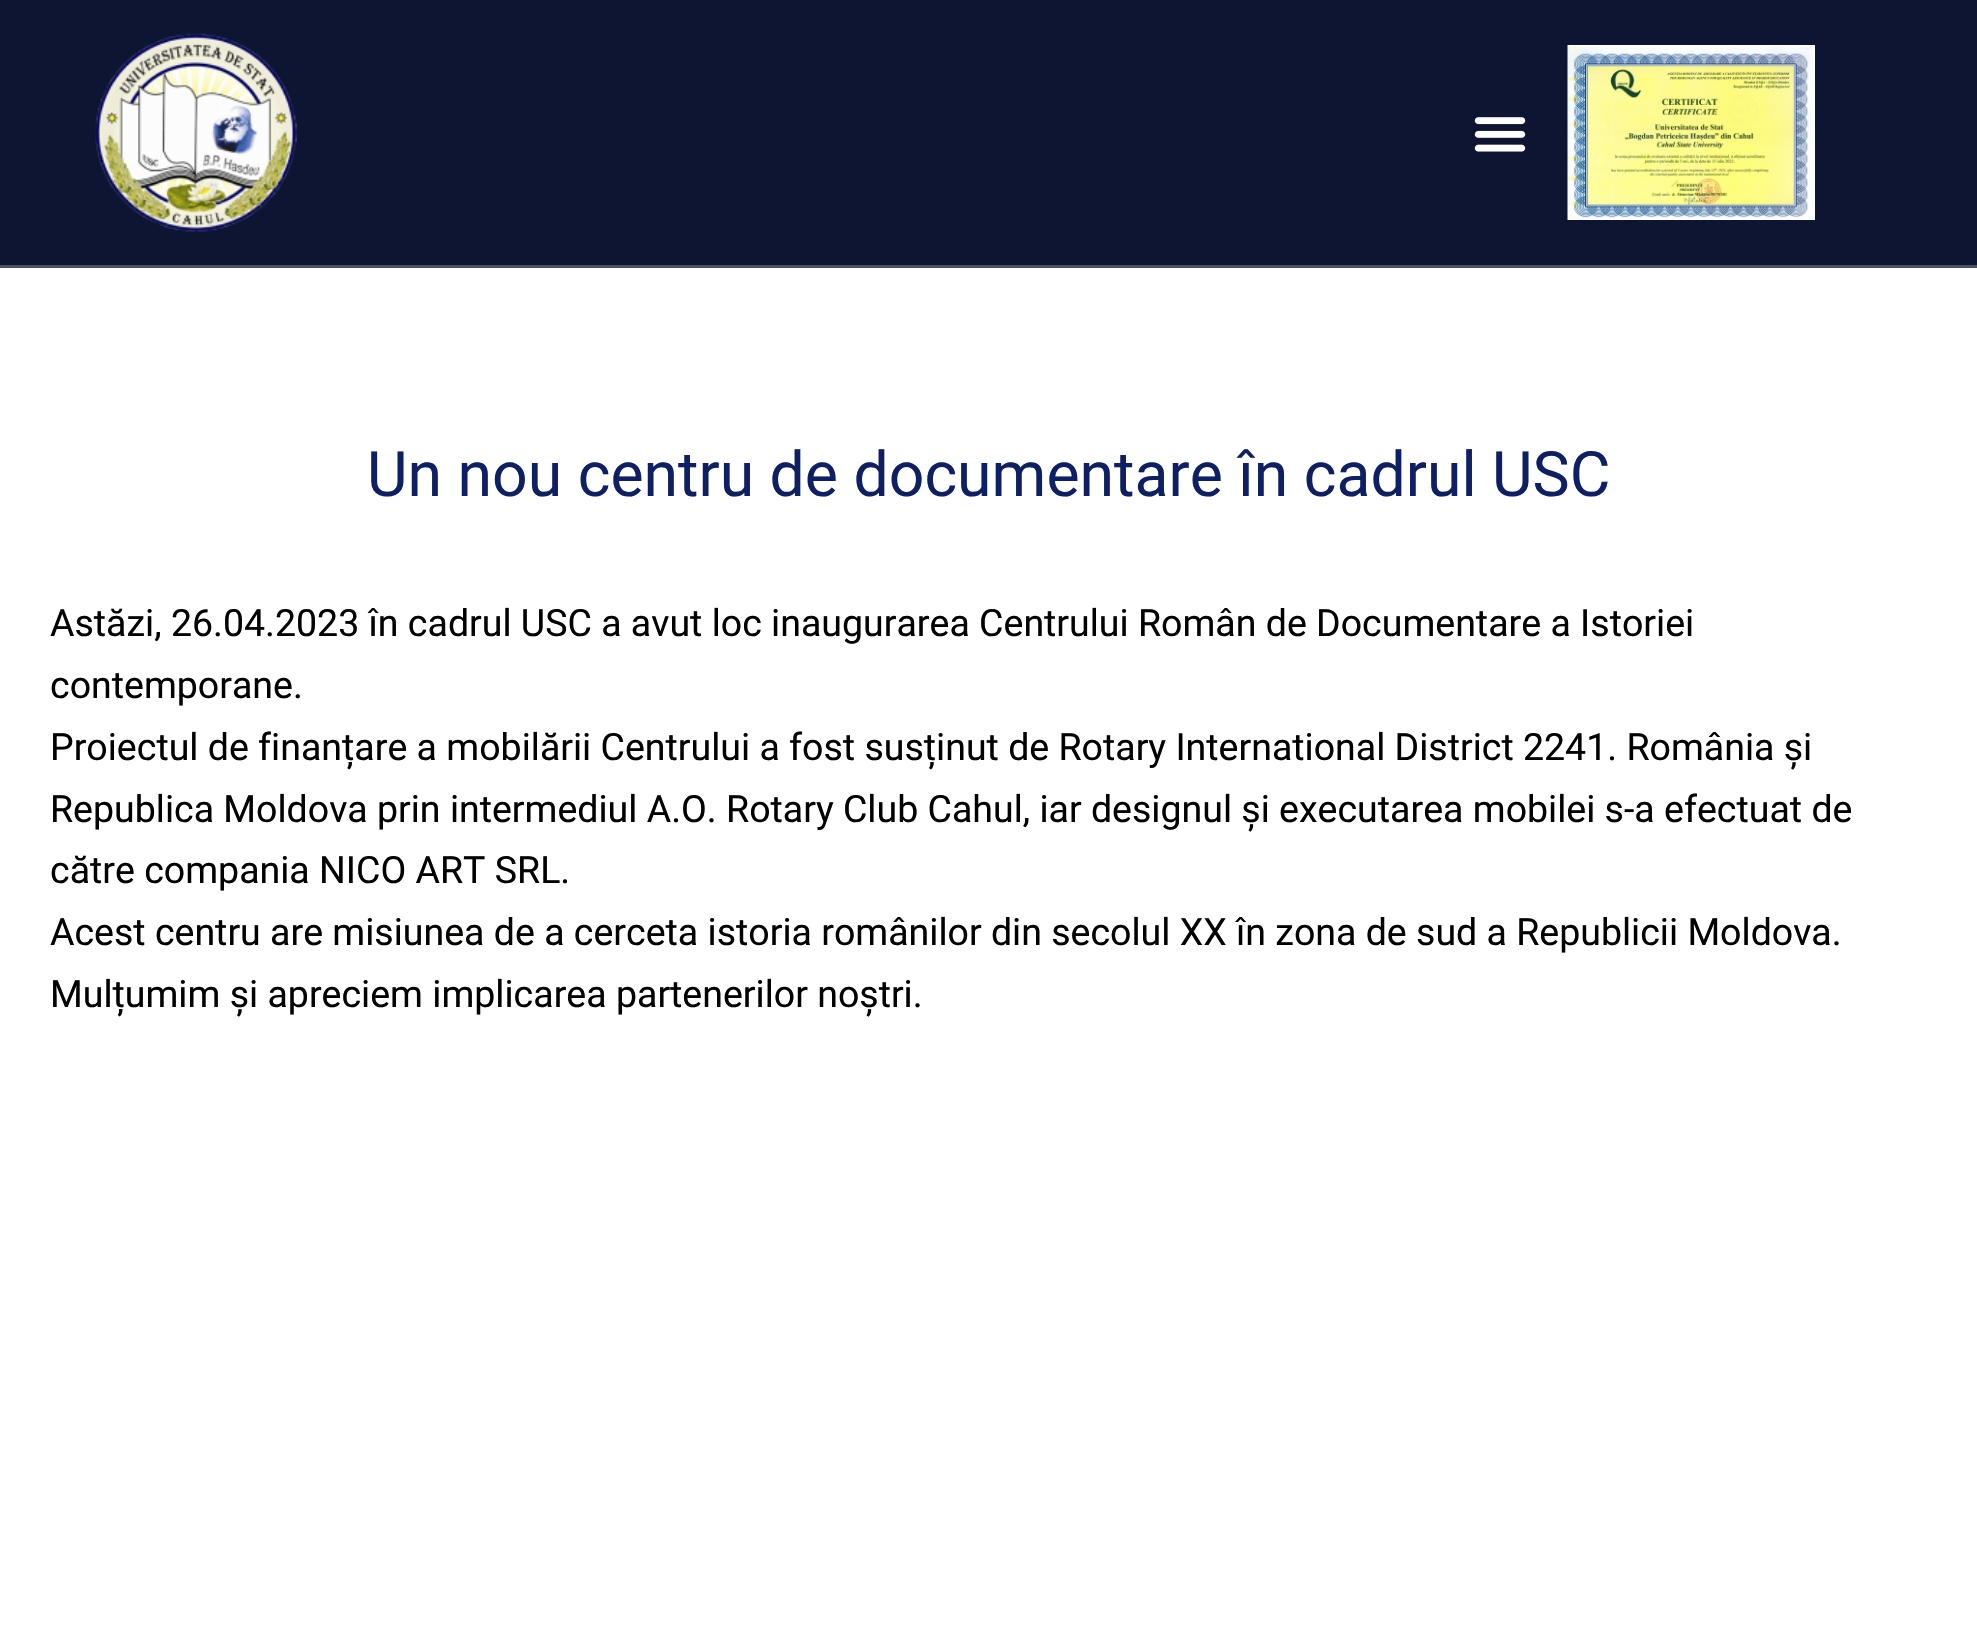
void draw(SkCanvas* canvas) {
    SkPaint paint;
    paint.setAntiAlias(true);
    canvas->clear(0xFFFFFFFF);
    paint.setColor(0xFF0D1532);
    canvas->drawRect(SkRect::MakeXYWH(0, 0, 1977, 265), paint);
    paint.setColor(0xFF4A5065);
    canvas->drawRect(SkRect::MakeXYWH(0, 265, 1977, 3), paint);
    canvas->drawImageRect(SkImages::DeferredFromEncodedData(SkData::MakeFromFileName("img1.png")), SkRect::MakeXYWH(95, 33, 202, 199), SkSamplingOptions());
    canvas->drawImageRect(SkImages::DeferredFromEncodedData(SkData::MakeFromFileName("img2.png")), SkRect::MakeXYWH(1474, 117, 52, 35), SkSamplingOptions());
    canvas->drawImageRect(SkImages::DeferredFromEncodedData(SkData::MakeFromFileName("img3.png")), SkRect::MakeXYWH(1567, 45, 248, 175), SkSamplingOptions());
    SkFont font1(fontMgr->matchFamilyStyle("Roboto", SkFontStyle::Normal()), 62.5f);
    font1.setSubpixel(true);
    paint.setColor(0xFF0E2063);
    canvas->drawString("Un nou centru de documentare în cadrul USC", 367, 496, font1, paint);
    SkFont font2(fontMgr->matchFamilyStyle("Roboto", SkFontStyle::Normal()), 37.5f);
    font2.setSubpixel(true);
    paint.setColor(0xFF030000);
    canvas->drawString("Astăzi, 26.04.2023 în cadrul USC a avut loc inaugurarea Centrului Român de Documentare a Istoriei", 50, 636, font2, paint);
    canvas->drawString("contemporane.", 50, 698, font2, paint);
    canvas->drawString("Proiectul de finanțare a mobilării Centrului a fost susținut de Rotary International District 2241. România și", 50, 760, font2, paint);
    canvas->drawString("Republica Moldova prin intermediul A.O. Rotary Club Cahul, iar designul și executarea mobilei s-a efectuat de", 50, 822, font2, paint);
    canvas->drawString("către compania NICO ART SRL.", 50, 883, font2, paint);
    canvas->drawString("Acest centru are misiunea de a cerceta istoria românilor din secolul XX în zona de sud a Republicii Moldova.", 50, 945, font2, paint);
    canvas->drawString("Mulțumim și apreciem implicarea partenerilor noștri.", 50, 1007, font2, paint);
}
